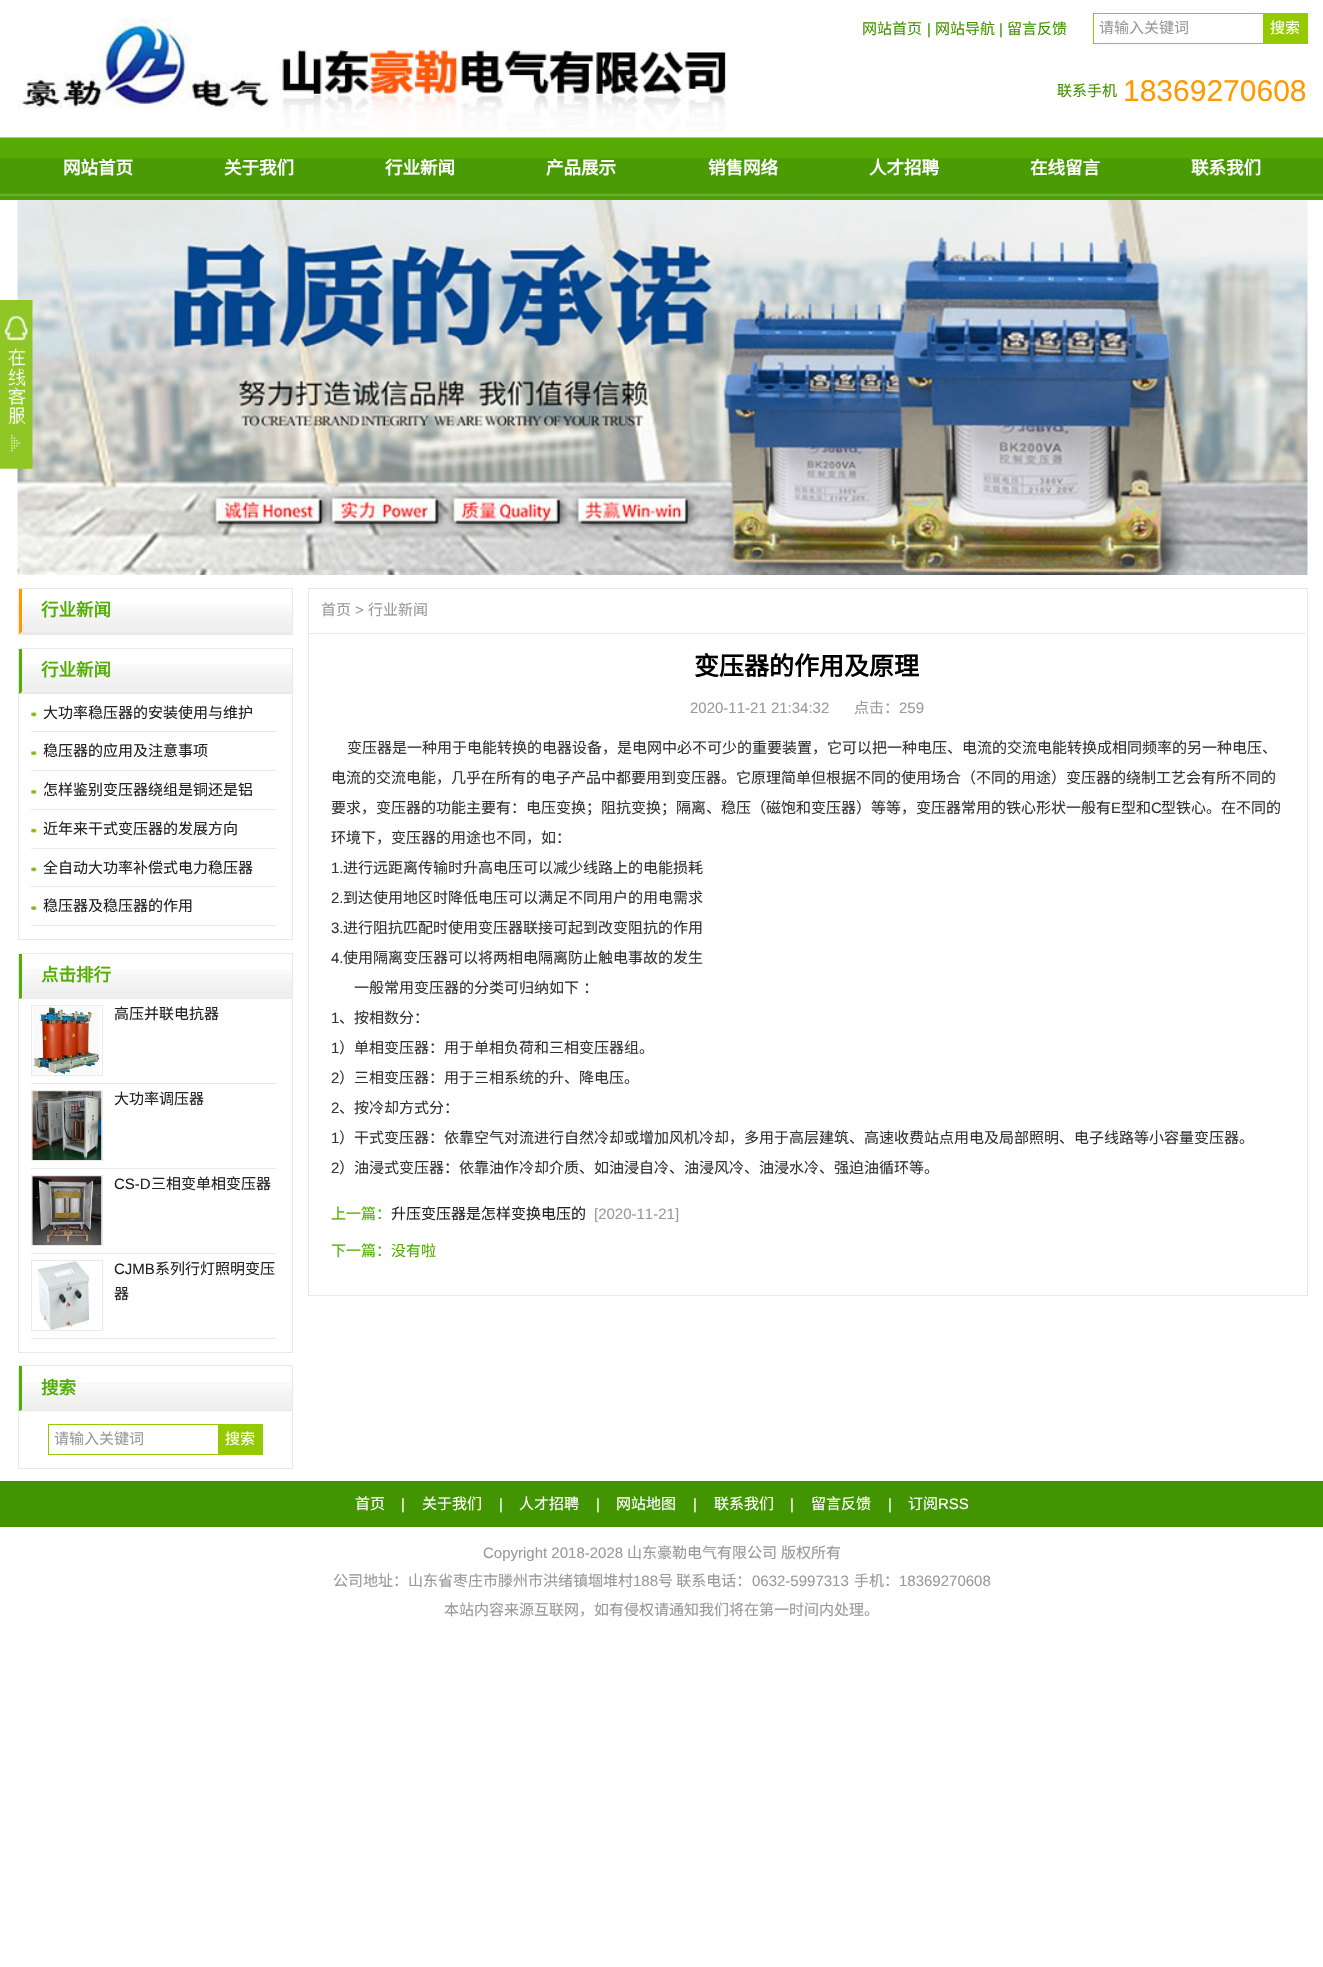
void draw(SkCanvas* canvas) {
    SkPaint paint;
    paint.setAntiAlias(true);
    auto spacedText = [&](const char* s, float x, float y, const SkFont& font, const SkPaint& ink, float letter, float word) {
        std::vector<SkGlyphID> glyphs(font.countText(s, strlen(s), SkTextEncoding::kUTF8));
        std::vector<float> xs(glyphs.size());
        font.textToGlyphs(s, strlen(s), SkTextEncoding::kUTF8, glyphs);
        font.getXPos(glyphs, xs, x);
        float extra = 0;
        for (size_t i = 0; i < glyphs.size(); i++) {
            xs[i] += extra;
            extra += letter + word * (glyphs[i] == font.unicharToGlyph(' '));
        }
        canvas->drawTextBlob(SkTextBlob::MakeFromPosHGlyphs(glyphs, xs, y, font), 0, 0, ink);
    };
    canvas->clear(0xFFFFFFFF);
    canvas->drawImageRect(SkImages::DeferredFromEncodedData(SkData::MakeFromFileName("img1.png")), SkRect::MakeXYWH(17, 18, 710, 114), SkSamplingOptions());
    SkFont font1(fontMgr->matchFamilyStyle("Noto Sans CJK SC", SkFontStyle::Normal()), 15);
    font1.setSubpixel(true);
    paint.setColor(0xFF429300);
    canvas->drawString("网站首页", 862, 34, font1, paint);
    SkFont font2(fontMgr->matchFamilyStyle("Liberation Sans", SkFontStyle::Normal()), 15);
    font2.setSubpixel(true);
    canvas->drawString("|", 927, 34, font2, paint);
    canvas->drawString("网站导航", 935, 34, font1, paint);
    canvas->drawString("|", 999, 34, font2, paint);
    canvas->drawString("留言反馈", 1007, 34, font1, paint);
    paint.setStyle(SkPaint::kStroke_Style);
    paint.setStrokeWidth(1);
    paint.setColor(0xFF94CA01);
    canvas->drawRect(SkRect::MakeXYWH(1093.5f, 13.5f, 170, 30), paint);
    paint.setStyle(SkPaint::kFill_Style);
    paint.setColor(0xFF999999);
    canvas->drawString("请输入关键词", 1099, 33, font1, paint);
    paint.setColor(0xFF94CA01);
    canvas->drawRect(SkRect::MakeXYWH(1264, 13, 44, 31), paint);
    paint.setColor(0xFFFFFFFF);
    canvas->drawString("搜索", 1270, 33, font1, paint);
    paint.setColor(0xFF429300);
    canvas->drawString("联系手机", 1057, 96, font1, paint);
    SkFont font3(fontMgr->matchFamilyStyle("Liberation Sans", SkFontStyle::Normal()), 30);
    font3.setSubpixel(true);
    paint.setColor(0xFFFF9900);
    canvas->drawString("18369270608", 1123, 101, font3, paint);
    canvas->drawImageRect(SkImages::DeferredFromEncodedData(SkData::MakeFromFileName("img2.png")), SkRect::MakeXYWH(0, 137, 1323, 63), SkSamplingOptions());
    SkFont font4(fontMgr->matchFamilyStyle("Noto Sans CJK SC", SkFontStyle::Bold()), 17.5f);
    font4.setSubpixel(true);
    paint.setColor(0xFFFFFFFF);
    canvas->drawString("网站首页", 63, 174, font4, paint);
    canvas->drawString("关于我们", 224, 174, font4, paint);
    canvas->drawString("行业新闻", 385, 174, font4, paint);
    canvas->drawString("产品展示", 546, 174, font4, paint);
    canvas->drawString("销售网络", 708, 174, font4, paint);
    canvas->drawString("人才招聘", 869, 174, font4, paint);
    canvas->drawString("在线留言", 1030, 174, font4, paint);
    canvas->drawString("联系我们", 1191, 174, font4, paint);
    canvas->drawImageRect(SkImages::DeferredFromEncodedData(SkData::MakeFromFileName("img4.png")), SkRect::MakeXYWH(17, 200, 1291, 375), SkSamplingOptions());
    canvas->drawImageRect(SkImages::DeferredFromEncodedData(SkData::MakeFromFileName("img3.png")), SkRect::MakeXYWH(0, 300, 33, 169), SkSamplingOptions());
    canvas->drawImageRect(SkImages::DeferredFromEncodedData(SkData::MakeFromFileName("img5.png")), SkRect::MakeXYWH(17, 604, 275, 30), SkSamplingOptions());
    paint.setStyle(SkPaint::kStroke_Style);
    paint.setColor(0xFFE9E9E9);
    canvas->drawRect(SkRect::MakeXYWH(18.5f, 588.5f, 274, 46), paint);
    paint.setStyle(SkPaint::kFill_Style);
    canvas->drawPath(SkPathBuilder().moveTo(291, 634).lineTo(19, 634).lineTo(22, 632).lineTo(291, 632).close().detach(), paint);
    paint.setColor(0xFFFF9900);
    canvas->drawPath(SkPathBuilder().moveTo(19, 634).lineTo(19, 589).lineTo(22, 589).lineTo(22, 632).close().detach(), paint);
    paint.setColor(0xFF51AF01);
    canvas->drawString("行业新闻", 41, 616, font4, paint);
    canvas->drawImageRect(SkImages::DeferredFromEncodedData(SkData::MakeFromFileName("img5.png")), SkRect::MakeXYWH(17, 664, 275, 30), SkSamplingOptions());
    paint.setStyle(SkPaint::kStroke_Style);
    paint.setColor(0xFFE9E9E9);
    canvas->drawRect(SkRect::MakeXYWH(18.5f, 648.5f, 274, 291), paint);
    paint.setStyle(SkPaint::kFill_Style);
    canvas->drawPath(SkPathBuilder().moveTo(291, 694).lineTo(19, 694).lineTo(22, 692).lineTo(291, 692).close().detach(), paint);
    paint.setColor(0xFF51AF01);
    canvas->drawPath(SkPathBuilder().moveTo(19, 694).lineTo(19, 649).lineTo(22, 649).lineTo(22, 692).close().detach(), paint);
    canvas->drawString("行业新闻", 41, 676, font4, paint);
    paint.setColor(0xFFE9E9E9);
    canvas->drawRect(SkRect::MakeXYWH(31, 731, 245, 1), paint);
    canvas->drawImageRect(SkImages::DeferredFromEncodedData(SkData::MakeFromFileName("img6.png")), SkRect::MakeXYWH(31, 712, 6, 5), SkSamplingOptions());
    paint.setColor(0xFF222222);
    canvas->drawString("大功率稳压器的安装使用与维护", 43, 718, font1, paint);
    paint.setColor(0xFFE9E9E9);
    canvas->drawRect(SkRect::MakeXYWH(31, 770, 245, 1), paint);
    canvas->drawImageRect(SkImages::DeferredFromEncodedData(SkData::MakeFromFileName("img7.png")), SkRect::MakeXYWH(31, 751, 6, 4), SkSamplingOptions());
    paint.setColor(0xFF222222);
    canvas->drawString("稳压器的应用及注意事项", 43, 756, font1, paint);
    paint.setColor(0xFFE9E9E9);
    canvas->drawRect(SkRect::MakeXYWH(31, 809, 245, 1), paint);
    canvas->drawImageRect(SkImages::DeferredFromEncodedData(SkData::MakeFromFileName("img8.png")), SkRect::MakeXYWH(31, 789, 6, 5), SkSamplingOptions());
    paint.setColor(0xFF222222);
    canvas->drawString("怎样鉴别变压器绕组是铜还是铝", 43, 795, font1, paint);
    paint.setColor(0xFFE9E9E9);
    canvas->drawRect(SkRect::MakeXYWH(31, 848, 245, 1), paint);
    canvas->drawImageRect(SkImages::DeferredFromEncodedData(SkData::MakeFromFileName("img9.png")), SkRect::MakeXYWH(31, 828, 6, 5), SkSamplingOptions());
    paint.setColor(0xFF222222);
    canvas->drawString("近年来干式变压器的发展方向", 43, 834, font1, paint);
    paint.setColor(0xFFE9E9E9);
    canvas->drawRect(SkRect::MakeXYWH(31, 886, 245, 1), paint);
    canvas->drawImageRect(SkImages::DeferredFromEncodedData(SkData::MakeFromFileName("img6.png")), SkRect::MakeXYWH(31, 867, 6, 5), SkSamplingOptions());
    paint.setColor(0xFF222222);
    canvas->drawString("全自动大功率补偿式电力稳压器", 43, 873, font1, paint);
    paint.setColor(0xFFE9E9E9);
    canvas->drawRect(SkRect::MakeXYWH(31, 925, 245, 1), paint);
    canvas->drawImageRect(SkImages::DeferredFromEncodedData(SkData::MakeFromFileName("img7.png")), SkRect::MakeXYWH(31, 906, 6, 4), SkSamplingOptions());
    paint.setColor(0xFF222222);
    canvas->drawString("稳压器及稳压器的作用", 43, 911, font1, paint);
    canvas->drawImageRect(SkImages::DeferredFromEncodedData(SkData::MakeFromFileName("img5.png")), SkRect::MakeXYWH(17, 969, 275, 30), SkSamplingOptions());
    paint.setStyle(SkPaint::kStroke_Style);
    paint.setColor(0xFFE9E9E9);
    canvas->drawRect(SkRect::MakeXYWH(18.5f, 953.5f, 274, 399), paint);
    paint.setStyle(SkPaint::kFill_Style);
    canvas->drawPath(SkPathBuilder().moveTo(291, 999).lineTo(19, 999).lineTo(22, 998).lineTo(291, 998).close().detach(), paint);
    paint.setColor(0xFF51AF01);
    canvas->drawPath(SkPathBuilder().moveTo(19, 999).lineTo(19, 954).lineTo(22, 954).lineTo(22, 998).close().detach(), paint);
    canvas->drawString("点击排行", 41, 981, font4, paint);
    paint.setColor(0xFFE9E9E9);
    canvas->drawRect(SkRect::MakeXYWH(31, 1083, 245, 1), paint);
    paint.setStyle(SkPaint::kStroke_Style);
    canvas->drawRect(SkRect::MakeXYWH(31.5f, 1005.5f, 71, 70), paint);
    canvas->drawImageRect(SkImages::DeferredFromEncodedData(SkData::MakeFromFileName("img10.png")), SkRect::MakeXYWH(33, 1006, 67, 69), SkSamplingOptions());
    paint.setStyle(SkPaint::kFill_Style);
    paint.setColor(0xFF222222);
    canvas->drawString("高压并联电抗器", 114, 1019, font1, paint);
    paint.setColor(0xFFE9E9E9);
    canvas->drawRect(SkRect::MakeXYWH(31, 1168, 245, 1), paint);
    paint.setStyle(SkPaint::kStroke_Style);
    canvas->drawRect(SkRect::MakeXYWH(31.5f, 1090.5f, 71, 70), paint);
    canvas->drawImageRect(SkImages::DeferredFromEncodedData(SkData::MakeFromFileName("img11.png")), SkRect::MakeXYWH(32, 1091, 70, 69), SkSamplingOptions());
    paint.setStyle(SkPaint::kFill_Style);
    paint.setColor(0xFF222222);
    canvas->drawString("大功率调压器", 114, 1104, font1, paint);
    paint.setColor(0xFFE9E9E9);
    canvas->drawRect(SkRect::MakeXYWH(31, 1253, 245, 1), paint);
    paint.setStyle(SkPaint::kStroke_Style);
    canvas->drawRect(SkRect::MakeXYWH(31.5f, 1175.5f, 71, 70), paint);
    canvas->drawImageRect(SkImages::DeferredFromEncodedData(SkData::MakeFromFileName("img12.png")), SkRect::MakeXYWH(32, 1176, 70, 69), SkSamplingOptions());
    paint.setStyle(SkPaint::kFill_Style);
    paint.setColor(0xFF222222);
    canvas->drawString("CS-D", 114, 1189, font2, paint);
    canvas->drawString("三相变单相变压器", 151, 1189, font1, paint);
    paint.setColor(0xFFE9E9E9);
    canvas->drawRect(SkRect::MakeXYWH(31, 1338, 245, 1), paint);
    paint.setStyle(SkPaint::kStroke_Style);
    canvas->drawRect(SkRect::MakeXYWH(31.5f, 1260.5f, 71, 70), paint);
    canvas->drawImageRect(SkImages::DeferredFromEncodedData(SkData::MakeFromFileName("img13.png")), SkRect::MakeXYWH(37, 1261, 53, 69), SkSamplingOptions());
    paint.setStyle(SkPaint::kFill_Style);
    paint.setColor(0xFF222222);
    canvas->drawString("CJMB", 114, 1274, font2, paint);
    canvas->drawString("系列行灯照明变压", 155, 1274, font1, paint);
    canvas->drawString("器", 114, 1299, font1, paint);
    canvas->drawImageRect(SkImages::DeferredFromEncodedData(SkData::MakeFromFileName("img14.png")), SkRect::MakeXYWH(17, 1382, 275, 30), SkSamplingOptions());
    paint.setStyle(SkPaint::kStroke_Style);
    paint.setColor(0xFFE9E9E9);
    canvas->drawRect(SkRect::MakeXYWH(18.5f, 1365.5f, 274, 103), paint);
    paint.setStyle(SkPaint::kFill_Style);
    canvas->drawPath(SkPathBuilder().moveTo(291, 1411).lineTo(19, 1411).lineTo(22, 1410).lineTo(291, 1410).close().detach(), paint);
    paint.setColor(0xFF51AF01);
    canvas->drawPath(SkPathBuilder().moveTo(19, 1411).lineTo(19, 1366).lineTo(22, 1366).lineTo(22, 1410).close().detach(), paint);
    canvas->drawString("搜索", 41, 1394, font4, paint);
    paint.setStyle(SkPaint::kStroke_Style);
    paint.setColor(0xFF94CA01);
    canvas->drawRect(SkRect::MakeXYWH(48.5f, 1424.5f, 170, 30), paint);
    paint.setStyle(SkPaint::kFill_Style);
    paint.setColor(0xFF999999);
    canvas->drawString("请输入关键词", 54, 1444, font1, paint);
    paint.setColor(0xFF94CA01);
    canvas->drawRect(SkRect::MakeXYWH(219, 1424, 44, 31), paint);
    paint.setColor(0xFFFFFFFF);
    canvas->drawString("搜索", 225, 1444, font1, paint);
    paint.setStyle(SkPaint::kStroke_Style);
    paint.setColor(0xFFE9E9E9);
    canvas->drawRect(SkRect::MakeXYWH(308.5f, 588.5f, 999, 707), paint);
    paint.setStyle(SkPaint::kFill_Style);
    canvas->drawRect(SkRect::MakeXYWH(309, 633, 997, 1), paint);
    paint.setColor(0xFF999999);
    canvas->drawString("首页", 321, 615, font1, paint);
    canvas->drawString(">", 355, 615, font2, paint);
    canvas->drawString("行业新闻", 368, 615, font1, paint);
    SkFont font5(fontMgr->matchFamilyStyle("Noto Sans CJK SC", SkFontStyle::Bold()), 25);
    font5.setSubpixel(true);
    paint.setColor(0xFF000000);
    canvas->drawString("变压器的作用及原理", 694, 675, font5, paint);
    paint.setColor(0xFF999999);
    canvas->drawString("2020-11-21 21:34:32", 690, 713, font2, paint);
    canvas->drawString("点击：", 854, 713, font1, paint);
    canvas->drawString("259", 899, 713, font2, paint);
    paint.setColor(0xFF333333);
    canvas->drawString("变压器是一种用于电能转换的电器设备，是电网中必不可少的重要装置，它可以把一种电压、电流的交流电能转换成相同频率的另一种电压、", 347, 753, font1, paint);
    canvas->drawString("电流的交流电能，几乎在所有的电子产品中都要用到变压器。它原理简单但根据不同的使用场合（不同的用途）变压器的绕制工艺会有所不同的", 331, 783, font1, paint);
    canvas->drawString("要求，变压器的功能主要有：电压变换；阻抗变换；隔离、稳压（磁饱和变压器）等等，变压器常用的铁心形状一般有", 331, 813, font1, paint);
    canvas->drawString("E", 1111, 813, font2, paint);
    canvas->drawString("型和", 1121, 813, font1, paint);
    canvas->drawString("C", 1151, 813, font2, paint);
    canvas->drawString("型铁心。在不同的", 1161, 813, font1, paint);
    canvas->drawString("环境下，变压器的用途也不同，如：", 331, 843, font1, paint);
    canvas->drawString("1.", 331, 873, font2, paint);
    canvas->drawString("进行远距离传输时升高电压可以减少线路上的电能损耗", 343, 873, font1, paint);
    canvas->drawString("2.", 331, 903, font2, paint);
    canvas->drawString("到达使用地区时降低电压可以满足不同用户的用电需求", 343, 903, font1, paint);
    canvas->drawString("3.", 331, 933, font2, paint);
    canvas->drawString("进行阻抗匹配时使用变压器联接可起到改变阻抗的作用", 343, 933, font1, paint);
    canvas->drawString("4.", 331, 963, font2, paint);
    canvas->drawString("使用隔离变压器可以将两相电隔离防止触电事故的发生", 343, 963, font1, paint);
    spacedText("一般常用变压器的分类可归纳如下 ：", 354, 993, font1, paint, 0, 1);
    canvas->drawString("1", 331, 1023, font2, paint);
    canvas->drawString("、按相数分：", 339, 1023, font1, paint);
    canvas->drawString("1", 331, 1053, font2, paint);
    canvas->drawString("）单相变压器：用于单相负荷和三相变压器组。", 339, 1053, font1, paint);
    canvas->drawString("2", 331, 1083, font2, paint);
    canvas->drawString("）三相变压器：用于三相系统的升、降电压。", 339, 1083, font1, paint);
    canvas->drawString("2", 331, 1113, font2, paint);
    canvas->drawString("、按冷却方式分：", 339, 1113, font1, paint);
    canvas->drawString("1", 331, 1143, font2, paint);
    canvas->drawString("）干式变压器：依靠空气对流进行自然冷却或增加风机冷却，多用于高层建筑、高速收费站点用电及局部照明、电子线路等小容量变压器。", 339, 1143, font1, paint);
    canvas->drawString("2", 331, 1173, font2, paint);
    canvas->drawString("）油浸式变压器：依靠油作冷却介质、如油浸自冷、油浸风冷、油浸水冷、强迫油循环等。", 339, 1173, font1, paint);
    paint.setColor(0xFF51AF01);
    canvas->drawString("上一篇：", 331, 1219, font1, paint);
    paint.setColor(0xFF222222);
    canvas->drawString("升压变压器是怎样变换电压的", 391, 1219, font1, paint);
    paint.setColor(0xFF999999);
    canvas->drawString("[2020-11-21]", 594, 1219, font2, paint);
    paint.setColor(0xFF51AF01);
    canvas->drawString("下一篇：没有啦", 331, 1256, font1, paint);
    paint.setColor(0xFF429400);
    canvas->drawRect(SkRect::MakeXYWH(0, 1481, 1323, 46), paint);
    paint.setColor(0xFFFFFFFF);
    canvas->drawString("首页", 355, 1509, font1, paint);
    canvas->drawString("|", 401, 1509, font2, paint);
    canvas->drawString("关于我们", 422, 1509, font1, paint);
    canvas->drawString("|", 499, 1509, font2, paint);
    canvas->drawString("人才招聘", 519, 1509, font1, paint);
    canvas->drawString("|", 596, 1509, font2, paint);
    canvas->drawString("网站地图", 616, 1509, font1, paint);
    canvas->drawString("|", 693, 1509, font2, paint);
    canvas->drawString("联系我们", 714, 1509, font1, paint);
    canvas->drawString("|", 790, 1509, font2, paint);
    canvas->drawString("留言反馈", 811, 1509, font1, paint);
    canvas->drawString("|", 888, 1509, font2, paint);
    canvas->drawString("订阅", 908, 1509, font1, paint);
    canvas->drawString("RSS", 938, 1509, font2, paint);
    paint.setColor(0xFF999999);
    canvas->drawString("Copyright 2018-2028", 483, 1558, font2, paint);
    canvas->drawString("山东豪勒电气有限公司", 627, 1558, font1, paint);
    canvas->drawString("版权所有", 781, 1558, font1, paint);
    canvas->drawString("公司地址：山东省枣庄市滕州市洪绪镇堌堆村", 333, 1586, font1, paint);
    canvas->drawString("188", 633, 1586, font2, paint);
    canvas->drawString("号 联系电话：", 658, 1586, font1, paint);
    canvas->drawString("0632-5997313", 752, 1586, font2, paint);
    canvas->drawString("手机：", 854, 1586, font1, paint);
    canvas->drawString("18369270608", 899, 1586, font2, paint);
    canvas->drawString("本站内容来源互联网，如有侵权请通知我们将在第一时间内处理。", 444, 1615, font1, paint);
}
